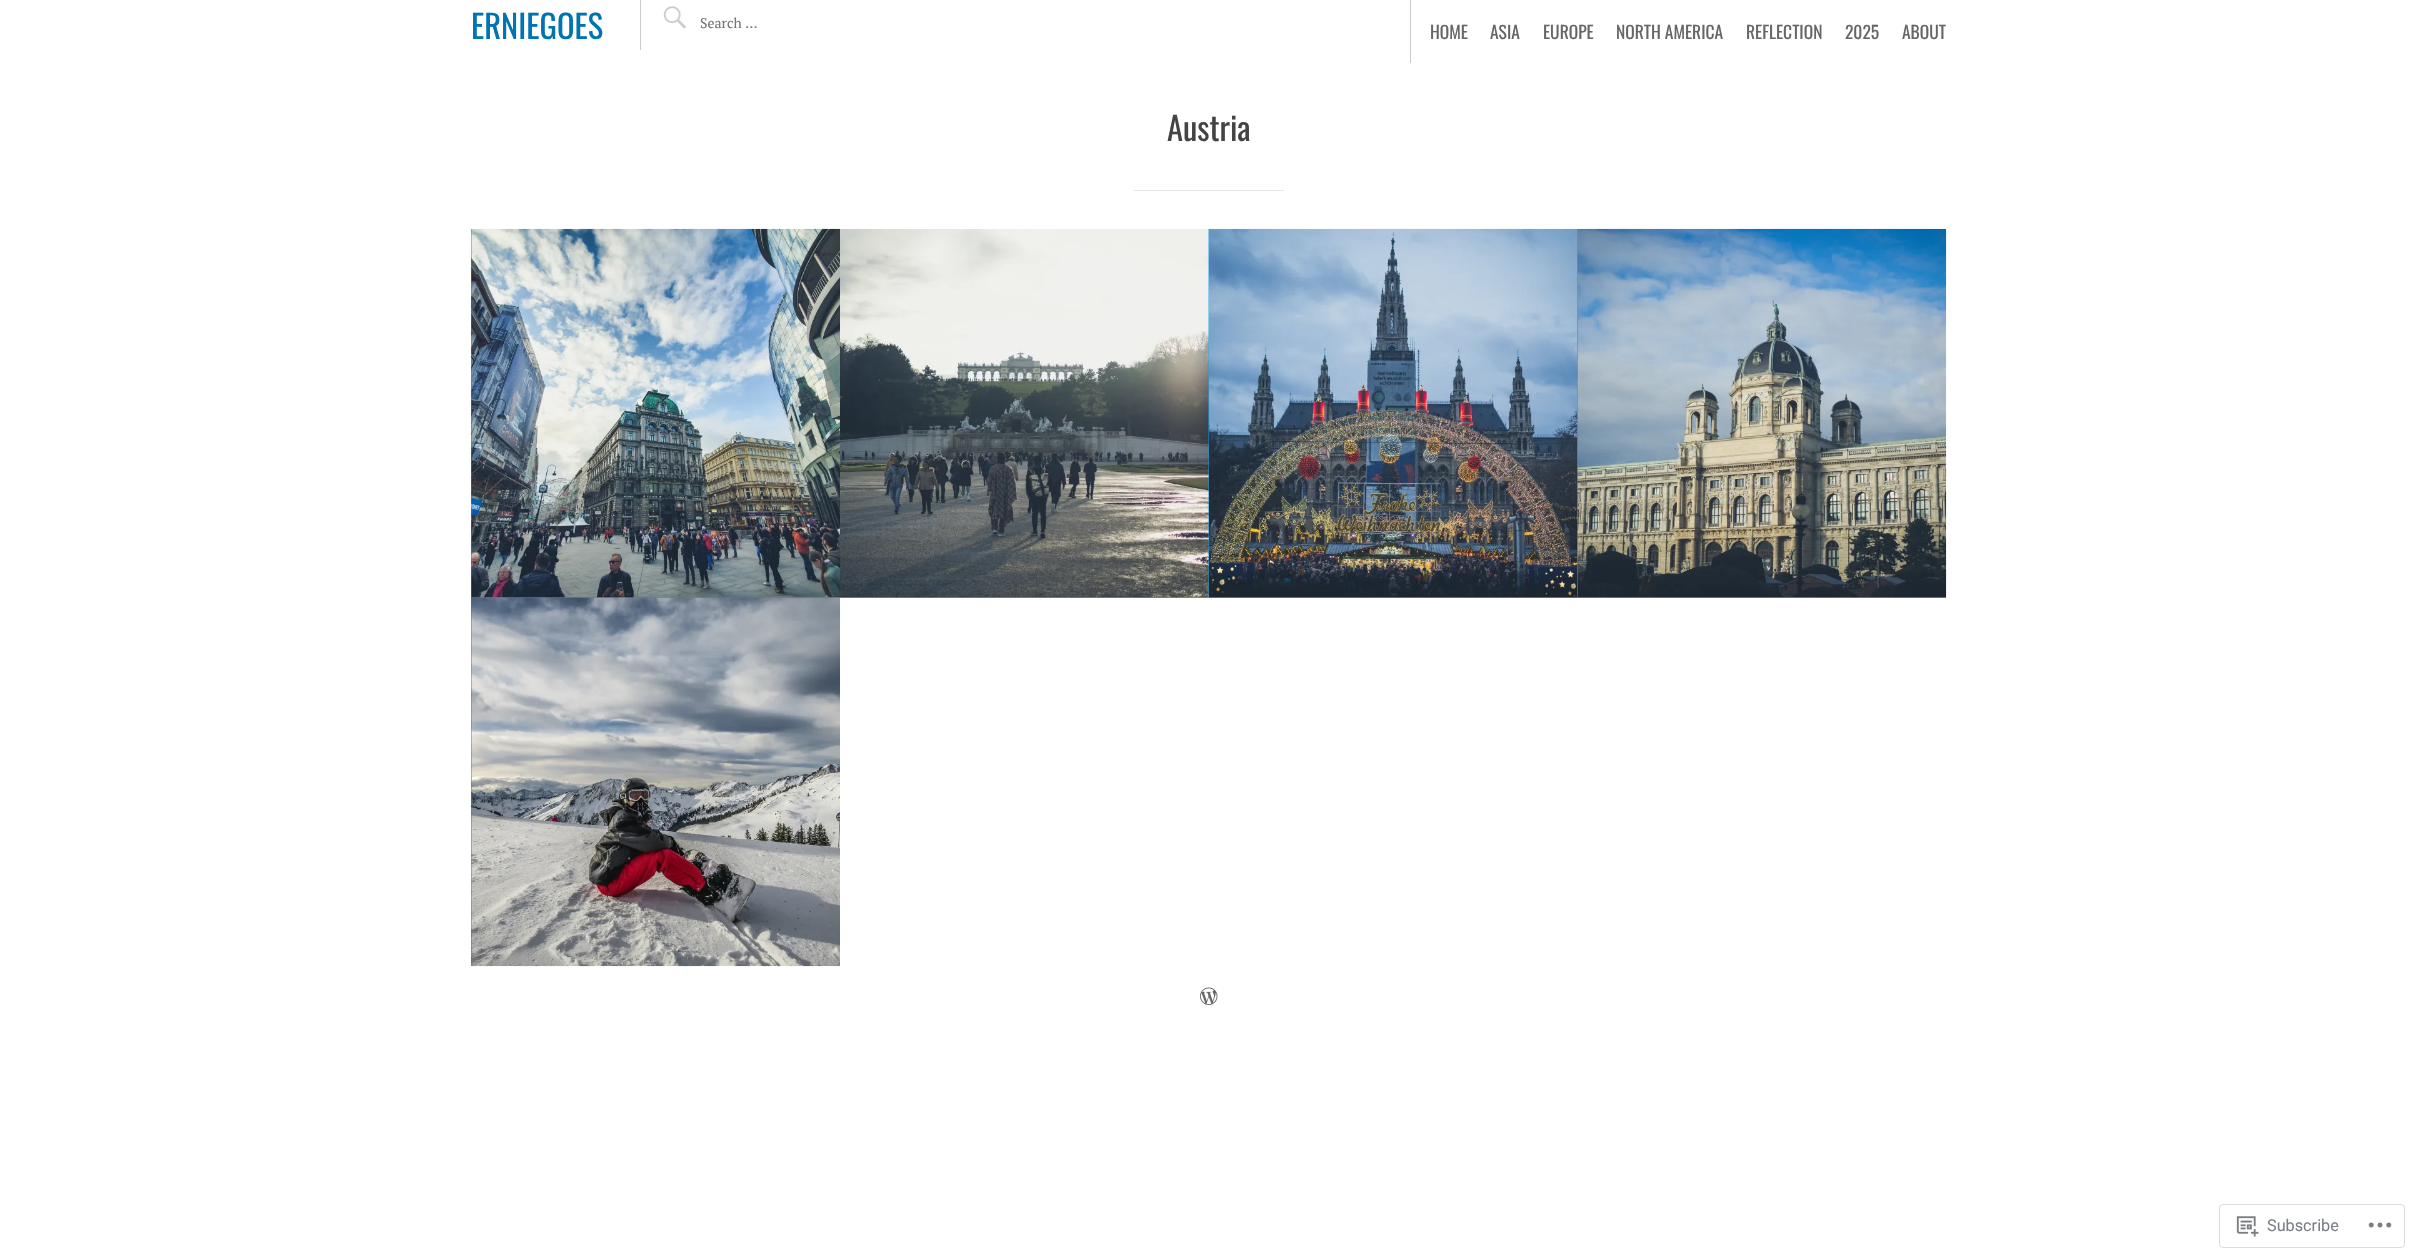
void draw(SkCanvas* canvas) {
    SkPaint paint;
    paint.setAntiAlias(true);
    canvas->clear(0xFFFFFFFF);
    paint.setColor(0xFFCCCCCC);
    canvas->drawRect(SkRect::MakeXYWH(640, 0, 1, 50), paint);
    SkFont font1(fontMgr->matchFamilyStyle("Oswald", SkFontStyle::Normal()), 32.5f);
    font1.setSubpixel(true);
    paint.setColor(0xFF0074B2);
    canvas->drawString("ERNIEGOES", 471, 39, font1, paint);
    canvas->drawImageRect(SkImages::DeferredFromEncodedData(SkData::MakeFromFileName("img1.png")), SkRect::MakeXYWH(663, 6, 23, 23), SkSamplingOptions());
    SkFont font2(fontMgr->matchFamilyStyle("PT Serif", SkFontStyle::Normal()), 14);
    font2.setSubpixel(true);
    paint.setColor(0xFF757575);
    canvas->drawString("Search …", 700, 28, font2, paint);
    paint.setColor(0xFFCCCCCC);
    canvas->drawRect(SkRect::MakeXYWH(1410, 0, 1, 63), paint);
    SkFont font3(fontMgr->matchFamilyStyle("Oswald", SkFontStyle::Normal()), 17.5f);
    font3.setSubpixel(true);
    paint.setColor(0xFF666666);
    canvas->drawString("HOME", 1430, 39, font3, paint);
    canvas->drawString("ASIA", 1490, 39, font3, paint);
    canvas->drawString("EUROPE", 1543, 39, font3, paint);
    canvas->drawString("NORTH AMERICA", 1616, 39, font3, paint);
    canvas->drawString("REFLECTION", 1746, 39, font3, paint);
    canvas->drawString("2025", 1845, 39, font3, paint);
    canvas->drawString("ABOUT", 1902, 39, font3, paint);
    paint.setColor(0xFF444444);
    canvas->drawString("Austria", 1167, 141, font1, paint);
    paint.setColor(0xFFE6E6E6);
    canvas->drawRect(SkRect::MakeXYWH(1134, 190, 150, 1), paint);
    paint.setColor(0xFF0693DE);
    canvas->drawRect(SkRect::MakeXYWH(471, 229, 369, 369), paint);
    canvas->drawImageRect(SkImages::DeferredFromEncodedData(SkData::MakeFromFileName("img2.png")), SkRect::MakeXYWH(471, 228, 369, 370), SkSamplingOptions());
    paint.setColor(0xFF16A8F7);
    canvas->drawRect(SkRect::MakeXYWH(840, 229, 369, 369), paint);
    canvas->drawImageRect(SkImages::DeferredFromEncodedData(SkData::MakeFromFileName("img3.png")), SkRect::MakeXYWH(840, 229, 369, 369), SkSamplingOptions());
    paint.setColor(0xFF0CA5F7);
    canvas->drawRect(SkRect::MakeXYWH(1209, 229, 369, 369), paint);
    canvas->drawImageRect(SkImages::DeferredFromEncodedData(SkData::MakeFromFileName("img4.png")), SkRect::MakeXYWH(1208, 228, 370, 370), SkSamplingOptions());
    paint.setColor(0xFF16A8F7);
    canvas->drawRect(SkRect::MakeXYWH(1578, 597, 368, 1), paint);
    canvas->drawImageRect(SkImages::DeferredFromEncodedData(SkData::MakeFromFileName("img5.png")), SkRect::MakeXYWH(1577, 228, 370, 370), SkSamplingOptions());
    paint.setColor(0xFF068CD4);
    canvas->drawRect(SkRect::MakeXYWH(471, 598, 1, 368), paint);
    canvas->drawImageRect(SkImages::DeferredFromEncodedData(SkData::MakeFromFileName("img6.png")), SkRect::MakeXYWH(471, 597, 369, 370), SkSamplingOptions());
    canvas->drawImageRect(SkImages::DeferredFromEncodedData(SkData::MakeFromFileName("img7.png")), SkRect::MakeXYWH(1200, 987, 18, 18), SkSamplingOptions());
    paint.setStyle(SkPaint::kStroke_Style);
    paint.setStrokeWidth(1);
    paint.setColor(0xFFDDDDDF);
    canvas->drawRoundRect(SkRect::MakeXYWH(2219.5f, 1204.5f, 185, 43), 3.5f, 3.5f, paint);
    canvas->drawImageRect(SkImages::DeferredFromEncodedData(SkData::MakeFromFileName("img8.png")), SkRect::MakeXYWH(2236, 1216, 23, 21), SkSamplingOptions());
    SkFont font4(fontMgr->matchFamilyStyle("Roboto", SkFontStyle::Normal()), 16.25f);
    font4.setSubpixel(true);
    paint.setStyle(SkPaint::kFill_Style);
    paint.setColor(0xFF7B7F85);
    canvas->drawString("Subscribe", 2267, 1231, font4, paint);
    canvas->drawImageRect(SkImages::DeferredFromEncodedData(SkData::MakeFromFileName("img9.png")), SkRect::MakeXYWH(2368, 1222, 24, 6), SkSamplingOptions());
}
